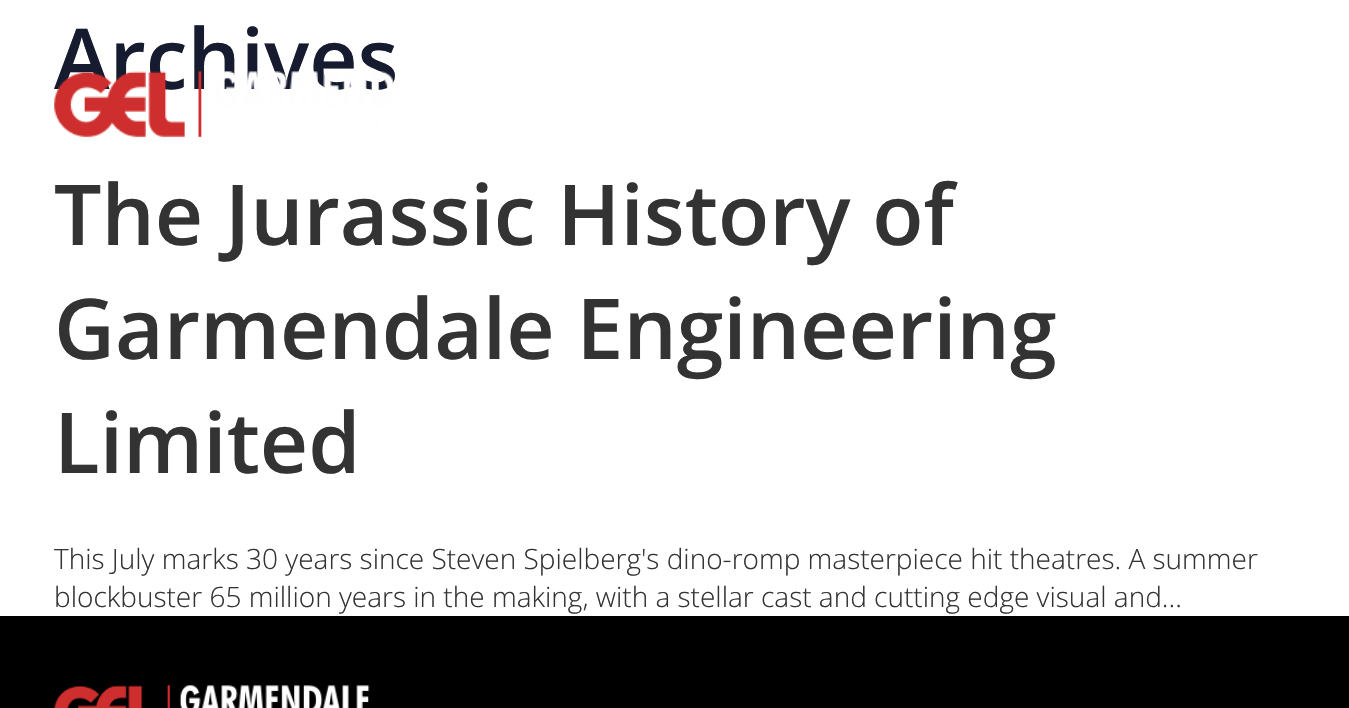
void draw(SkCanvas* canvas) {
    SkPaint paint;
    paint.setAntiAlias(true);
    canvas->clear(0xFFFFFFFF);
    SkFont font1(fontMgr->matchFamilyStyle("Open Sans", SkFontStyle(600, SkFontStyle::kNormal_Width, SkFontStyle::kUpright_Slant)), 84);
    font1.setSubpixel(true);
    paint.setColor(0xFF161B30);
    canvas->drawString("Archives", 54, 89, font1, paint);
    paint.setColor(0xFF333333);
    canvas->drawString("The Jurassic History of", 54, 245, font1, paint);
    canvas->drawString("Garmendale Engineering", 54, 359, font1, paint);
    canvas->drawString("Limited", 54, 473, font1, paint);
    SkFont font2(fontMgr->matchFamilyStyle("Open Sans", SkFontStyle(300, SkFontStyle::kNormal_Width, SkFontStyle::kUpright_Slant)), 28);
    font2.setSubpixel(true);
    canvas->drawString("This July marks 30 years since Steven Spielberg's dino-romp masterpiece hit theatres. A summer", 54, 569, font2, paint);
    canvas->drawString("blockbuster 65 million years in the making, with a stellar cast and cutting edge visual and...", 54, 607, font2, paint);
    canvas->drawImageRect(SkImages::DeferredFromEncodedData(SkData::MakeFromFileName("img1.png")), SkRect::MakeXYWH(54, 71, 340, 67), SkSamplingOptions());
    paint.setColor(0xFF000000);
    canvas->drawRect(SkRect::MakeXYWH(0, 616, 1349, 92), paint);
    canvas->drawImageRect(SkImages::DeferredFromEncodedData(SkData::MakeFromFileName("img2.png")), SkRect::MakeXYWH(54, 685, 316, 23), SkSamplingOptions());
}
